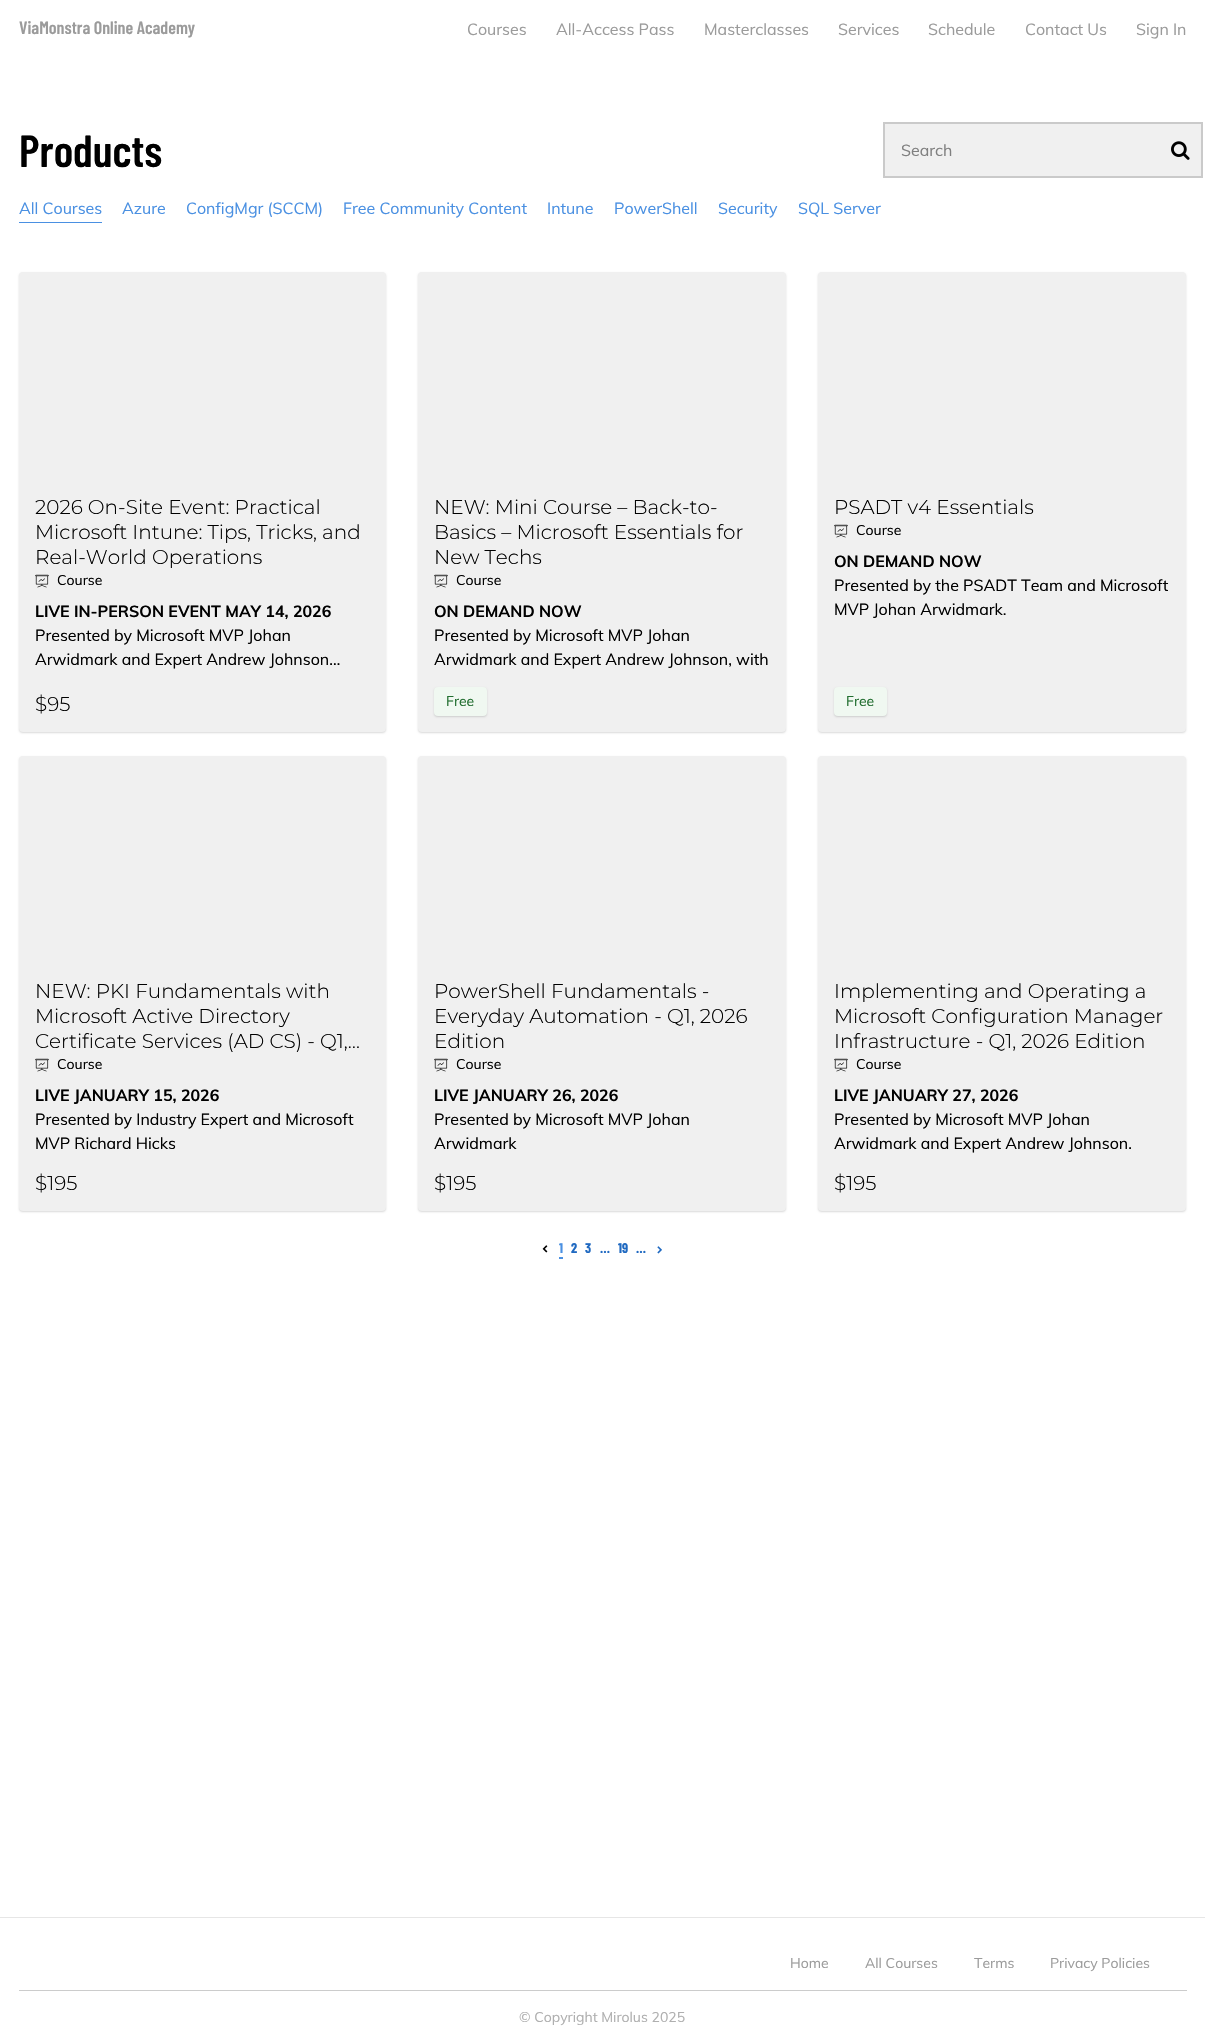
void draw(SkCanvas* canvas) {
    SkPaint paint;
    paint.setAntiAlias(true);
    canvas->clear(0xFFFFFFFF);
    SkFont font1(fontMgr->matchFamilyStyle("Barlow Condensed", SkFontStyle(600, SkFontStyle::kNormal_Width, SkFontStyle::kUpright_Slant)), 18);
    font1.setSubpixel(true);
    paint.setColor(0xFF9B9B9B);
    canvas->drawString("ViaMonstra Online Academy", 19, 34, font1, paint);
    SkFont font2(fontMgr->matchFamilyStyle("Muli", SkFontStyle::Normal()), 16);
    font2.setSubpixel(true);
    canvas->drawString("Courses", 467, 35, font2, paint);
    canvas->drawString("All-Access Pass", 556, 35, font2, paint);
    canvas->drawString("Masterclasses", 704, 35, font2, paint);
    canvas->drawString("Services", 838, 35, font2, paint);
    canvas->drawString("Schedule", 928, 35, font2, paint);
    canvas->drawString("Contact Us", 1025, 35, font2, paint);
    canvas->drawString("Sign In", 1136, 35, font2, paint);
    SkFont font3(fontMgr->matchFamilyStyle("Barlow Condensed", SkFontStyle(600, SkFontStyle::kNormal_Width, SkFontStyle::kUpright_Slant)), 45);
    font3.setSubpixel(true);
    paint.setColor(0xFF000000);
    canvas->drawString("Products", 19, 167, font3, paint);
    paint.setColor(0xFFF0F0F0);
    canvas->drawRect(SkRect::MakeXYWH(884, 123, 318, 54), paint);
    paint.setStyle(SkPaint::kStroke_Style);
    paint.setStrokeWidth(2);
    paint.setColor(0xFFCACACA);
    canvas->drawRect(SkRect::MakeXYWH(884, 123, 318, 54), paint);
    paint.setStyle(SkPaint::kFill_Style);
    paint.setColor(0xFF808080);
    canvas->drawString("Search", 901, 156, font2, paint);
    canvas->drawImageRect(SkImages::DeferredFromEncodedData(SkData::MakeFromFileName("img1.png")), SkRect::MakeXYWH(1171, 141, 19, 19), SkSamplingOptions());
    paint.setColor(0xFF4A90E2);
    canvas->drawString("All Courses", 19, 214, font2, paint);
    canvas->drawRect(SkRect::MakeXYWH(19, 222, 83, 1), paint);
    canvas->drawString("Azure", 122, 214, font2, paint);
    canvas->drawString("ConfigMgr (SCCM)", 186, 214, font2, paint);
    canvas->drawString("Free Community Content", 343, 214, font2, paint);
    canvas->drawString("Intune", 547, 214, font2, paint);
    canvas->drawString("PowerShell", 614, 214, font2, paint);
    canvas->drawString("Security", 718, 214, font2, paint);
    canvas->drawString("SQL Server", 798, 214, font2, paint);
    paint.setColor(0x26000000);
    paint.setMaskFilter(SkMaskFilter::MakeBlur(kNormal_SkBlurStyle, 1));
    canvas->drawRoundRect(SkRect::MakeXYWH(19, 273, 367, 460), 4, 4, paint);
    paint.setMaskFilter(nullptr);
    paint.setColor(0xFFF0F0F0);
    canvas->drawRoundRect(SkRect::MakeXYWH(19, 272, 367, 460), 4, 4, paint);
    SkFont font4(fontMgr->matchFamilyStyle("Montserrat", SkFontStyle(300, SkFontStyle::kNormal_Width, SkFontStyle::kUpright_Slant)), 20);
    font4.setSubpixel(true);
    paint.setColor(0xFF000000);
    canvas->drawString("2026 On-Site Event: Practical", 35, 514, font4, paint);
    canvas->drawString("Microsoft Intune: Tips, Tricks, and", 35, 539, font4, paint);
    canvas->drawString("Real-World Operations", 35, 564, font4, paint);
    canvas->drawImageRect(SkImages::DeferredFromEncodedData(SkData::MakeFromFileName("img2.png")), SkRect::MakeXYWH(35, 574, 14, 14), SkSamplingOptions());
    SkFont font5(fontMgr->matchFamilyStyle("Muli", SkFontStyle::Normal()), 14);
    font5.setSubpixel(true);
    canvas->drawString("Course", 57, 585, font5, paint);
    SkFont font6(fontMgr->matchFamilyStyle("Muli", SkFontStyle::Bold()), 16);
    font6.setSubpixel(true);
    canvas->drawString("LIVE IN-PERSON EVENT MAY 14, 2026", 35, 617, font6, paint);
    canvas->drawString("Presented by Microsoft MVP Johan", 35, 641, font2, paint);
    canvas->drawString("Arwidmark and Expert Andrew Johnson…", 35, 665, font2, paint);
    canvas->drawString("$95", 35, 711, font4, paint);
    paint.setColor(0x26000000);
    paint.setMaskFilter(SkMaskFilter::MakeBlur(kNormal_SkBlurStyle, 1));
    canvas->drawRoundRect(SkRect::MakeXYWH(418, 273, 368, 460), 4, 4, paint);
    paint.setMaskFilter(nullptr);
    paint.setColor(0xFFF0F0F0);
    canvas->drawRoundRect(SkRect::MakeXYWH(418, 272, 368, 460), 4, 4, paint);
    paint.setColor(0xFF000000);
    canvas->drawString("NEW: Mini Course – Back-to-", 434, 514, font4, paint);
    canvas->drawString("Basics – Microsoft Essentials for", 434, 539, font4, paint);
    canvas->drawString("New Techs", 434, 564, font4, paint);
    canvas->drawImageRect(SkImages::DeferredFromEncodedData(SkData::MakeFromFileName("img2.png")), SkRect::MakeXYWH(434, 574, 14, 14), SkSamplingOptions());
    canvas->drawString("Course", 456, 585, font5, paint);
    canvas->drawString("ON DEMAND NOW", 434, 617, font6, paint);
    canvas->drawString("Presented by Microsoft MVP Johan", 434, 641, font2, paint);
    canvas->drawString("Arwidmark and Expert Andrew Johnson, with", 434, 665, font2, paint);
    paint.setColor(0x26000000);
    paint.setMaskFilter(SkMaskFilter::MakeBlur(kNormal_SkBlurStyle, 1));
    canvas->drawRoundRect(SkRect::MakeXYWH(434, 688, 53, 29), 4, 4, paint);
    paint.setMaskFilter(nullptr);
    paint.setColor(0xFFF0F8F1);
    canvas->drawRoundRect(SkRect::MakeXYWH(434, 687, 53, 29), 4, 4, paint);
    paint.setColor(0xFF216E2F);
    canvas->drawString("Free", 446, 706, font5, paint);
    paint.setColor(0x26000000);
    paint.setMaskFilter(SkMaskFilter::MakeBlur(kNormal_SkBlurStyle, 1));
    canvas->drawRoundRect(SkRect::MakeXYWH(818, 273, 368, 460), 4, 4, paint);
    paint.setMaskFilter(nullptr);
    paint.setColor(0xFFF0F0F0);
    canvas->drawRoundRect(SkRect::MakeXYWH(818, 272, 368, 460), 4, 4, paint);
    paint.setColor(0xFF000000);
    canvas->drawString("PSADT v4 Essentials", 834, 514, font4, paint);
    canvas->drawImageRect(SkImages::DeferredFromEncodedData(SkData::MakeFromFileName("img2.png")), SkRect::MakeXYWH(834, 524, 14, 14), SkSamplingOptions());
    canvas->drawString("Course", 856, 535, font5, paint);
    canvas->drawString("ON DEMAND NOW", 834, 567, font6, paint);
    canvas->drawString("Presented by the PSADT Team and Microsoft", 834, 591, font2, paint);
    canvas->drawString("MVP Johan Arwidmark.", 834, 615, font2, paint);
    paint.setColor(0x26000000);
    paint.setMaskFilter(SkMaskFilter::MakeBlur(kNormal_SkBlurStyle, 1));
    canvas->drawRoundRect(SkRect::MakeXYWH(834, 688, 53, 29), 4, 4, paint);
    paint.setMaskFilter(nullptr);
    paint.setColor(0xFFF0F8F1);
    canvas->drawRoundRect(SkRect::MakeXYWH(834, 687, 53, 29), 4, 4, paint);
    paint.setColor(0xFF216E2F);
    canvas->drawString("Free", 846, 706, font5, paint);
    paint.setColor(0x26000000);
    paint.setMaskFilter(SkMaskFilter::MakeBlur(kNormal_SkBlurStyle, 1));
    canvas->drawRoundRect(SkRect::MakeXYWH(19, 757, 367, 455), 4, 4, paint);
    paint.setMaskFilter(nullptr);
    paint.setColor(0xFFF0F0F0);
    canvas->drawRoundRect(SkRect::MakeXYWH(19, 756, 367, 455), 4, 4, paint);
    paint.setColor(0xFF000000);
    canvas->drawString("NEW: PKI Fundamentals with", 35, 998, font4, paint);
    canvas->drawString("Microsoft Active Directory", 35, 1023, font4, paint);
    canvas->drawString("Certificate Services (AD CS) - Q1,…", 35, 1048, font4, paint);
    canvas->drawImageRect(SkImages::DeferredFromEncodedData(SkData::MakeFromFileName("img2.png")), SkRect::MakeXYWH(35, 1058, 14, 14), SkSamplingOptions());
    canvas->drawString("Course", 57, 1069, font5, paint);
    canvas->drawString("LIVE JANUARY 15, 2026", 35, 1101, font6, paint);
    canvas->drawString("Presented by Industry Expert and Microsoft", 35, 1125, font2, paint);
    canvas->drawString("MVP Richard Hicks", 35, 1149, font2, paint);
    canvas->drawString("$195", 35, 1190, font4, paint);
    paint.setColor(0x26000000);
    paint.setMaskFilter(SkMaskFilter::MakeBlur(kNormal_SkBlurStyle, 1));
    canvas->drawRoundRect(SkRect::MakeXYWH(418, 757, 368, 455), 4, 4, paint);
    paint.setMaskFilter(nullptr);
    paint.setColor(0xFFF0F0F0);
    canvas->drawRoundRect(SkRect::MakeXYWH(418, 756, 368, 455), 4, 4, paint);
    paint.setColor(0xFF000000);
    canvas->drawString("PowerShell Fundamentals -", 434, 998, font4, paint);
    canvas->drawString("Everyday Automation - Q1, 2026", 434, 1023, font4, paint);
    canvas->drawString("Edition", 434, 1048, font4, paint);
    canvas->drawImageRect(SkImages::DeferredFromEncodedData(SkData::MakeFromFileName("img2.png")), SkRect::MakeXYWH(434, 1058, 14, 14), SkSamplingOptions());
    canvas->drawString("Course", 456, 1069, font5, paint);
    canvas->drawString("LIVE JANUARY 26, 2026", 434, 1101, font6, paint);
    canvas->drawString("Presented by Microsoft MVP Johan", 434, 1125, font2, paint);
    canvas->drawString("Arwidmark", 434, 1149, font2, paint);
    canvas->drawString("$195", 434, 1190, font4, paint);
    paint.setColor(0x26000000);
    paint.setMaskFilter(SkMaskFilter::MakeBlur(kNormal_SkBlurStyle, 1));
    canvas->drawRoundRect(SkRect::MakeXYWH(818, 757, 368, 455), 4, 4, paint);
    paint.setMaskFilter(nullptr);
    paint.setColor(0xFFF0F0F0);
    canvas->drawRoundRect(SkRect::MakeXYWH(818, 756, 368, 455), 4, 4, paint);
    paint.setColor(0xFF000000);
    canvas->drawString("Implementing and Operating a", 834, 998, font4, paint);
    canvas->drawString("Microsoft Configuration Manager", 834, 1023, font4, paint);
    canvas->drawString("Infrastructure - Q1, 2026 Edition", 834, 1048, font4, paint);
    canvas->drawImageRect(SkImages::DeferredFromEncodedData(SkData::MakeFromFileName("img2.png")), SkRect::MakeXYWH(834, 1058, 14, 14), SkSamplingOptions());
    canvas->drawString("Course", 856, 1069, font5, paint);
    canvas->drawString("LIVE JANUARY 27, 2026", 834, 1101, font6, paint);
    canvas->drawString("Presented by Microsoft MVP Johan", 834, 1125, font2, paint);
    canvas->drawString("Arwidmark and Expert Andrew Johnson.", 834, 1149, font2, paint);
    canvas->drawString("$195", 834, 1190, font4, paint);
    canvas->drawImageRect(SkImages::DeferredFromEncodedData(SkData::MakeFromFileName("img3.png")), SkRect::MakeXYWH(542, 1245, 6, 8), SkSamplingOptions());
    SkFont font7(fontMgr->matchFamilyStyle("Barlow Condensed", SkFontStyle::Bold()), 14);
    font7.setSubpixel(true);
    paint.setColor(0xFF4A90E2);
    canvas->drawString("1", 559, 1253, font7, paint);
    canvas->drawRect(SkRect::MakeXYWH(559, 1257, 4, 2), paint);
    paint.setColor(0xFF1F69C1);
    canvas->drawString("2", 571, 1253, font7, paint);
    canvas->drawString("3", 585, 1253, font7, paint);
    canvas->drawString("…", 600, 1253, font7, paint);
    canvas->drawString("19", 618, 1253, font7, paint);
    canvas->drawString("…", 636, 1253, font7, paint);
    canvas->drawImageRect(SkImages::DeferredFromEncodedData(SkData::MakeFromFileName("img4.png")), SkRect::MakeXYWH(657, 1246, 5, 8), SkSamplingOptions());
    paint.setColor(0xFFE6E6E6);
    canvas->drawRect(SkRect::MakeXYWH(0, 1917, 1205, 1), paint);
    paint.setColor(0xFF9B9B9B);
    canvas->drawString("Home", 790, 1968, font5, paint);
    canvas->drawString("All Courses", 865, 1968, font5, paint);
    canvas->drawString("Terms", 974, 1968, font5, paint);
    canvas->drawString("Privacy Policies", 1050, 1968, font5, paint);
    paint.setColor(0xFFCCCCCC);
    canvas->drawRect(SkRect::MakeXYWH(19, 1990, 1168, 1), paint);
    paint.setColor(0xFFAFAFAF);
    canvas->drawString("© Copyright Mirolus 2025", 519, 2022, font5, paint);
}
